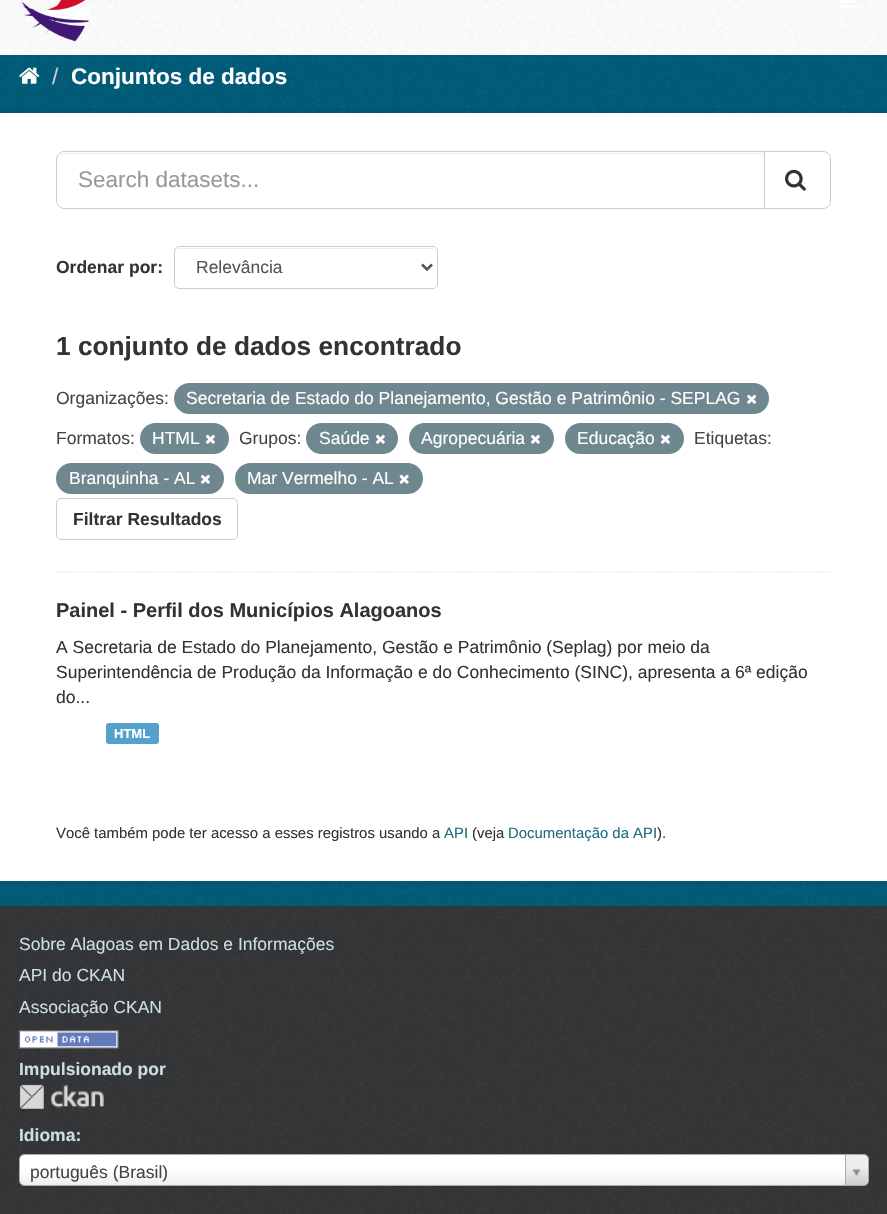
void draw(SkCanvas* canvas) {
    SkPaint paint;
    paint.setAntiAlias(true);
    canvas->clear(0xFF005D7A);
    canvas->drawImageRect(SkImages::DeferredFromEncodedData(SkData::MakeFromFileName("img1.png")), SkRect::MakeXYWH(0, 55, 887, 851), SkSamplingOptions());
    paint.setColor(0xFFFFFFFF);
    canvas->drawRect(SkRect::MakeXYWH(0, 0, 887, 55), paint);
    canvas->drawImageRect(SkImages::DeferredFromEncodedData(SkData::MakeFromFileName("img2.png")), SkRect::MakeXYWH(0, 0, 887, 55), SkSamplingOptions());
    canvas->drawImageRect(SkImages::DeferredFromEncodedData(SkData::MakeFromFileName("img3.png")), SkRect::MakeXYWH(21, 0, 70, 42), SkSamplingOptions());
    canvas->drawImageRect(SkImages::DeferredFromEncodedData(SkData::MakeFromFileName("img4.png")), SkRect::MakeXYWH(840, 0, 15, 8), SkSamplingOptions());
    canvas->drawImageRect(SkImages::DeferredFromEncodedData(SkData::MakeFromFileName("img5.png")), SkRect::MakeXYWH(19, 67, 21, 17), SkSamplingOptions());
    SkFont font1(fontMgr->matchFamilyStyle("Liberation Sans", SkFontStyle::Normal()), 22.5f);
    font1.setSubpixel(true);
    paint.setColor(0xFFCCCCCC);
    canvas->drawString("/", 52, 84, font1, paint);
    SkFont font2(fontMgr->matchFamilyStyle("Liberation Sans", SkFontStyle::Bold()), 22.5f);
    font2.setSubpixel(true);
    paint.setColor(0xFFFFFFFF);
    canvas->drawString("Conjuntos de dados", 71, 84, font2, paint);
    paint.setStyle(SkPaint::kStroke_Style);
    paint.setStrokeWidth(5);
    paint.setColor(0x0D000000);
    canvas->drawRect(SkRect::MakeXYWH(-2.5f, 110.5f, 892, 773), paint);
    paint.setStyle(SkPaint::kFill_Style);
    paint.setColor(0xFFFFFFFF);
    canvas->drawRect(SkRect::MakeXYWH(0, 113, 887, 768), paint);
    paint.setStyle(SkPaint::kStroke_Style);
    paint.setStrokeWidth(1.2f);
    paint.setColor(0xFFDDDDDD);
    paint.setPathEffect(SkDashPathEffect::Make({{1.25f, 1.25f}}, 0));
    canvas->drawPath(SkPathBuilder().moveTo(56, 572).lineTo(831, 572).detach(), paint);
    paint.setPathEffect(nullptr);
    paint.setStyle(SkPaint::kFill_Style);
    paint.setColor(0xFFECECEC);
    canvas->drawPath(SkPathBuilder().moveTo(64, 154).lineTo(764, 154).lineTo(764, 153).lineTo(64, 153).cubicTo(60, 153, 58, 156, 58, 160).cubicTo(58, 157, 60, 154, 64, 154).close().detach(), paint);
    paint.setStyle(SkPaint::kStroke_Style);
    paint.setStrokeWidth(1);
    paint.setColor(0xFFCCCCCC);
    canvas->drawPath(SkPathBuilder().moveTo(64, 151.5f).lineTo(764.5f, 151.5f).lineTo(764.5f, 208.5f).lineTo(64, 208.5f).cubicTo(60, 208.5f, 56.5f, 205, 56.5f, 201).lineTo(56.5f, 159).cubicTo(56.5f, 155, 60, 151.5f, 64, 151.5f).close().detach(), paint);
    paint.setStyle(SkPaint::kFill_Style);
    paint.setColor(0xFF999999);
    canvas->drawString("Search datasets...", 78, 187, font1, paint);
    paint.setColor(0xFFFFFFFF);
    canvas->drawPath(SkPathBuilder().moveTo(764.5f, 151.5f).lineTo(823, 151.5f).cubicTo(827, 151.5f, 830.5f, 155, 830.5f, 159).lineTo(830.5f, 201).cubicTo(830.5f, 205, 827, 208.5f, 823, 208.5f).lineTo(764.5f, 208.5f).close().detach(), paint);
    paint.setStyle(SkPaint::kStroke_Style);
    paint.setColor(0xFFCCCCCC);
    canvas->drawPath(SkPathBuilder().moveTo(764.5f, 151.5f).lineTo(823, 151.5f).cubicTo(827, 151.5f, 830.5f, 155, 830.5f, 159).lineTo(830.5f, 201).cubicTo(830.5f, 205, 827, 208.5f, 823, 208.5f).lineTo(764.5f, 208.5f).close().detach(), paint);
    canvas->drawImageRect(SkImages::DeferredFromEncodedData(SkData::MakeFromFileName("img6.png")), SkRect::MakeXYWH(785, 169, 21, 22), SkSamplingOptions());
    SkFont font3(fontMgr->matchFamilyStyle("Liberation Sans", SkFontStyle::Bold()), 17.5f);
    font3.setSubpixel(true);
    paint.setStyle(SkPaint::kFill_Style);
    paint.setColor(0xFF333333);
    canvas->drawString("Ordenar por:", 56, 273, font3, paint);
    paint.setColor(0xFFECECEC);
    canvas->drawPath(SkPathBuilder().moveTo(179, 249).lineTo(432, 249).cubicTo(434, 249, 435, 249, 436, 250).cubicTo(435, 249, 434, 248, 432, 248).lineTo(179, 248).cubicTo(177, 248, 175, 250, 175, 252).cubicTo(175, 250, 177, 249, 179, 249).close().detach(), paint);
    paint.setStyle(SkPaint::kStroke_Style);
    paint.setColor(0xFFCCCCCC);
    canvas->drawRoundRect(SkRect::MakeXYWH(174.5f, 246.5f, 263, 42), 4.5f, 4.5f, paint);
    paint.setStrokeWidth(2.5f);
    paint.setColor(0xFF555555);
    canvas->drawPath(SkPathBuilder().moveTo(422, 264.5f).lineTo(427, 269.5f).lineTo(432, 264.5f).detach(), paint);
    SkFont font4(fontMgr->matchFamilyStyle("Liberation Sans", SkFontStyle::Normal()), 17.5f);
    font4.setSubpixel(true);
    paint.setStyle(SkPaint::kFill_Style);
    canvas->drawString("Relevância", 196, 273, font4, paint);
    SkFont font5(fontMgr->matchFamilyStyle("Liberation Sans", SkFontStyle::Bold()), 26.25f);
    font5.setSubpixel(true);
    paint.setColor(0xFF333333);
    canvas->drawString("1 conjunto de dados encontrado", 56, 355, font5, paint);
    paint.setColor(0xFF444444);
    canvas->drawString("Organizações:", 56, 404, font4, paint);
    paint.setColor(0xFF6F8890);
    canvas->drawRoundRect(SkRect::MakeXYWH(174, 383, 595, 31), 15.5f, 15.5f, paint);
    paint.setColor(0xFFFFFFFF);
    canvas->drawString("Secretaria de Estado do Planejamento, Gestão e Patrimônio - SEPLAG", 186, 404, font4, paint);
    canvas->drawImageRect(SkImages::DeferredFromEncodedData(SkData::MakeFromFileName("img7.png")), SkRect::MakeXYWH(747, 394, 10, 10), SkSamplingOptions());
    paint.setColor(0xFF444444);
    canvas->drawString("Formatos:", 56, 444, font4, paint);
    paint.setColor(0xFF6F8890);
    canvas->drawRoundRect(SkRect::MakeXYWH(140, 423, 89, 31), 15.5f, 15.5f, paint);
    paint.setColor(0xFFFFFFFF);
    canvas->drawString("HTML", 152, 444, font4, paint);
    canvas->drawImageRect(SkImages::DeferredFromEncodedData(SkData::MakeFromFileName("img8.png")), SkRect::MakeXYWH(205, 434, 10, 10), SkSamplingOptions());
    paint.setColor(0xFF444444);
    canvas->drawString("Grupos:", 239, 444, font4, paint);
    paint.setColor(0xFF6F8890);
    canvas->drawRoundRect(SkRect::MakeXYWH(306, 423, 92, 31), 15.5f, 15.5f, paint);
    paint.setColor(0xFFFFFFFF);
    canvas->drawString("Saúde", 319, 444, font4, paint);
    canvas->drawImageRect(SkImages::DeferredFromEncodedData(SkData::MakeFromFileName("img8.png")), SkRect::MakeXYWH(375, 434, 10, 10), SkSamplingOptions());
    paint.setColor(0xFF6F8890);
    canvas->drawRoundRect(SkRect::MakeXYWH(409, 423, 145, 31), 15.5f, 15.5f, paint);
    paint.setColor(0xFFFFFFFF);
    canvas->drawString("Agropecuária", 421, 444, font4, paint);
    canvas->drawImageRect(SkImages::DeferredFromEncodedData(SkData::MakeFromFileName("img8.png")), SkRect::MakeXYWH(530, 434, 10, 10), SkSamplingOptions());
    paint.setColor(0xFF6F8890);
    canvas->drawRoundRect(SkRect::MakeXYWH(565, 423, 119, 31), 15.5f, 15.5f, paint);
    paint.setColor(0xFFFFFFFF);
    canvas->drawString("Educação", 577, 444, font4, paint);
    canvas->drawImageRect(SkImages::DeferredFromEncodedData(SkData::MakeFromFileName("img8.png")), SkRect::MakeXYWH(660, 434, 10, 10), SkSamplingOptions());
    paint.setColor(0xFF444444);
    canvas->drawString("Etiquetas:", 694, 444, font4, paint);
    paint.setColor(0xFF6F8890);
    canvas->drawRoundRect(SkRect::MakeXYWH(56, 463, 168, 31), 15.5f, 15.5f, paint);
    paint.setColor(0xFFFFFFFF);
    canvas->drawString("Branquinha - AL", 69, 484, font4, paint);
    canvas->drawImageRect(SkImages::DeferredFromEncodedData(SkData::MakeFromFileName("img8.png")), SkRect::MakeXYWH(200, 474, 10, 10), SkSamplingOptions());
    paint.setColor(0xFF6F8890);
    canvas->drawRoundRect(SkRect::MakeXYWH(235, 463, 188, 31), 15.5f, 15.5f, paint);
    paint.setColor(0xFFFFFFFF);
    canvas->drawString("Mar Vermelho - AL", 247, 484, font4, paint);
    canvas->drawImageRect(SkImages::DeferredFromEncodedData(SkData::MakeFromFileName("img9.png")), SkRect::MakeXYWH(399, 474, 10, 10), SkSamplingOptions());
    paint.setStyle(SkPaint::kStroke_Style);
    paint.setStrokeWidth(1);
    paint.setColor(0xFFCCCCCC);
    canvas->drawRoundRect(SkRect::MakeXYWH(56.5f, 498.5f, 181, 41), 4.5f, 4.5f, paint);
    paint.setStyle(SkPaint::kFill_Style);
    paint.setColor(0xFF333333);
    canvas->drawString("Filtrar Resultados", 73, 525, font3, paint);
    SkFont font6(fontMgr->matchFamilyStyle("Liberation Sans", SkFontStyle::Bold()), 20);
    font6.setSubpixel(true);
    canvas->drawString("Painel - Perfil dos Municípios Alagoanos", 56, 617, font6, paint);
    canvas->drawString("A Secretaria de Estado do Planejamento, Gestão e Patrimônio (Seplag) por meio da", 56, 653, font4, paint);
    canvas->drawString("Superintendência de Produção da Informação e do Conhecimento (SINC), apresenta a 6ª edição", 56, 678, font4, paint);
    canvas->drawString("do...", 56, 703, font4, paint);
    paint.setColor(0xFF55A1CE);
    canvas->drawRoundRect(SkRect::MakeXYWH(106, 723, 53, 21), 3, 3, paint);
    SkFont font7(fontMgr->matchFamilyStyle("Liberation Sans", SkFontStyle::Bold()), 13);
    font7.setSubpixel(true);
    paint.setColor(0xFFFFFFFF);
    canvas->drawString("HTML", 114, 738, font7, paint);
    SkFont font8(fontMgr->matchFamilyStyle("Liberation Sans", SkFontStyle::Normal()), 14.9f);
    font8.setSubpixel(true);
    paint.setColor(0xFF333333);
    canvas->drawString("Você também pode ter acesso a esses registros usando a", 56, 838, font8, paint);
    paint.setColor(0xFF206B82);
    canvas->drawString("API", 444, 838, font8, paint);
    paint.setColor(0xFF333333);
    canvas->drawString("(veja", 472, 838, font8, paint);
    paint.setColor(0xFF206B82);
    canvas->drawString("Documentação da API", 508, 838, font8, paint);
    paint.setColor(0xFF333333);
    canvas->drawString(").", 657, 838, font8, paint);
    paint.setColor(0xFF333536);
    canvas->drawRect(SkRect::MakeXYWH(0, 906, 887, 308), paint);
    canvas->drawImageRect(SkImages::DeferredFromEncodedData(SkData::MakeFromFileName("img10.png")), SkRect::MakeXYWH(0, 907, 886, 307), SkSamplingOptions());
    paint.setColor(0xFFCCDEE3);
    canvas->drawString("Sobre Alagoas em Dados e Informações", 19, 950, font4, paint);
    canvas->drawString("API do CKAN", 19, 981, font4, paint);
    canvas->drawString("Associação CKAN", 19, 1013, font4, paint);
    canvas->drawImageRect(SkImages::DeferredFromEncodedData(SkData::MakeFromFileName("img11.png")), SkRect::MakeXYWH(18, 1030, 101, 19), SkSamplingOptions());
    canvas->drawString("Impulsionado por", 19, 1075, font3, paint);
    canvas->drawImageRect(SkImages::DeferredFromEncodedData(SkData::MakeFromFileName("img12.png")), SkRect::MakeXYWH(19, 1084, 85, 25), SkSamplingOptions());
    canvas->drawString("Idioma:", 19, 1141, font3, paint);
    {
        const SkColor colors[] = {0xFFEEEEEE, 0xFFFFFFFF};
        const float stops[] = {0, 0.5f};
        const SkPoint ends[] = {{444, 1185}, {444, 1155}};
        paint.setShader(SkGradientShader::MakeLinear(ends, colors, stops, 2, SkTileMode::kClamp));
        paint.setAlpha(255);
    }
    canvas->drawRoundRect(SkRect::MakeXYWH(20, 1155, 848, 30), 4, 4, paint);
    paint.setStyle(SkPaint::kStroke_Style);
    paint.setShader(nullptr);
    paint.setColor(0xFFAAAAAA);
    canvas->drawRoundRect(SkRect::MakeXYWH(19.5f, 1154.5f, 849, 31), 4.5f, 4.5f, paint);
    paint.setStyle(SkPaint::kFill_Style);
    paint.setColor(0xFF444444);
    canvas->drawString("português (Brasil)", 30, 1178, font4, paint);
    canvas->save();
    canvas->clipPath(SkPathBuilder().moveTo(24, 1155).lineTo(864, 1155).cubicTo(866, 1155, 868, 1157, 868, 1159).lineTo(868, 1181).cubicTo(868, 1183, 866, 1185, 864, 1185).lineTo(24, 1185).cubicTo(22, 1185, 20, 1183, 20, 1181).lineTo(20, 1159).cubicTo(20, 1157, 22, 1155, 24, 1155).close().detach(), true);
    {
        const SkColor colors[] = {0xFFCCCCCC, 0xFFEEEEEE};
        const float stops[] = {0, 0.6f};
        const SkPoint ends[] = {{857, 1185}, {857, 1155}};
        paint.setShader(SkGradientShader::MakeLinear(ends, colors, stops, 2, SkTileMode::kClamp));
        paint.setAlpha(255);
    }
    canvas->drawPath(SkPathBuilder().moveTo(845, 1155).lineTo(863, 1155).cubicTo(866, 1155, 868, 1157, 868, 1160).lineTo(868, 1180).cubicTo(868, 1183, 866, 1185, 863, 1185).lineTo(845, 1185).close().detach(), paint);
    canvas->restore();
    paint.setShader(nullptr);
    paint.setColor(0xFFAAAAAA);
    canvas->drawRect(SkRect::MakeXYWH(845, 1155, 1, 30), paint);
    canvas->drawImageRect(SkImages::DeferredFromEncodedData(SkData::MakeFromFileName("img13.png")), SkRect::MakeXYWH(852, 1168, 9, 9), SkSamplingOptions());
}
